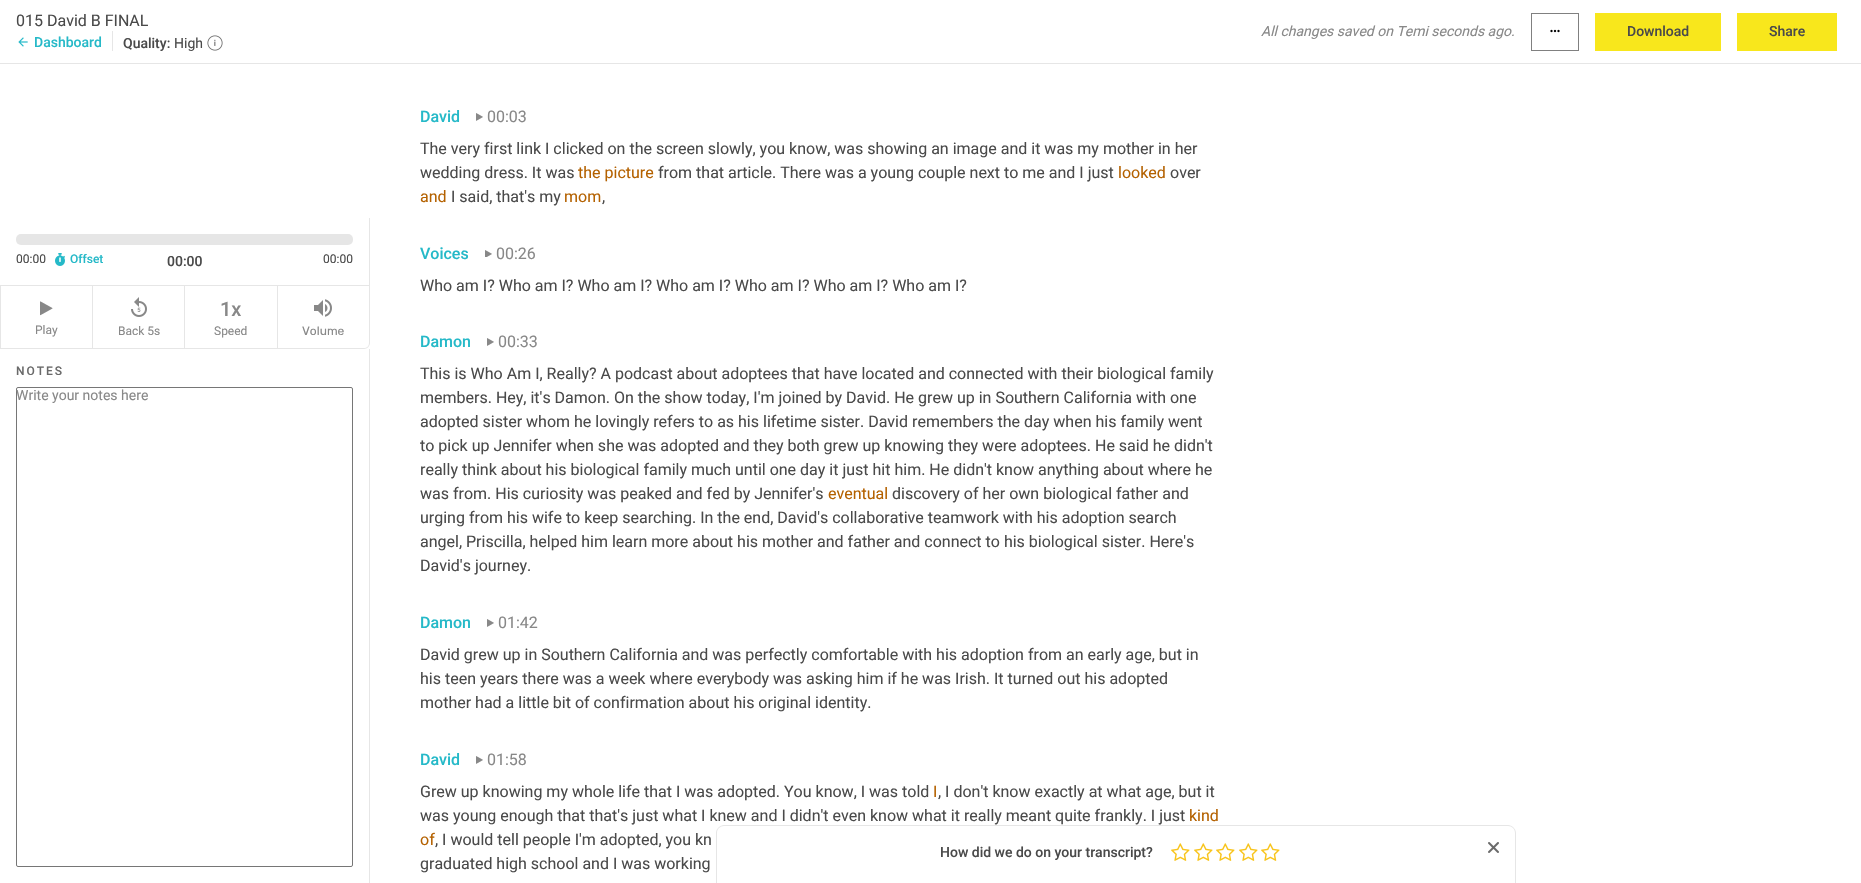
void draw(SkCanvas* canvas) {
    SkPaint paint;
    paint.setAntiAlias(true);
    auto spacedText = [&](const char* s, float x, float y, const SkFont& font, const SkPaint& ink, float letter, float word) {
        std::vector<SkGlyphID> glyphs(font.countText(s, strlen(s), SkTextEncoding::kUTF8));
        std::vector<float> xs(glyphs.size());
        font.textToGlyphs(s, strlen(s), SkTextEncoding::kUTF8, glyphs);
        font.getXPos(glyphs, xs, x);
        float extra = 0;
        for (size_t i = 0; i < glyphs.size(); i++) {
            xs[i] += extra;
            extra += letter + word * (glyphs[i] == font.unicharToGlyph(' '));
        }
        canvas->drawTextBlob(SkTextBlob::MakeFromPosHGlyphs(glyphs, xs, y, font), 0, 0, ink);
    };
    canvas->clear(0xFFFFFFFF);
    paint.setColor(0xFFE6E6E6);
    canvas->drawRect(SkRect::MakeXYWH(0, 63, 1861, 1), paint);
    SkFont font1(fontMgr->matchFamilyStyle("Roboto", SkFontStyle::Normal()), 16);
    font1.setSubpixel(true);
    paint.setColor(0xFF4A4A4A);
    canvas->drawString("015 David B FINAL", 16, 26, font1, paint);
    canvas->drawImageRect(SkImages::DeferredFromEncodedData(SkData::MakeFromFileName("img1.png")), SkRect::MakeXYWH(18, 37, 10, 10), SkSamplingOptions());
    SkFont font2(fontMgr->matchFamilyStyle("Roboto", SkFontStyle(500, SkFontStyle::kNormal_Width, SkFontStyle::kUpright_Slant)), 14);
    font2.setSubpixel(true);
    paint.setColor(0xFF25B9C8);
    canvas->drawString("Dashboard", 34, 47, font2, paint);
    paint.setColor(0xFFE6E6E6);
    canvas->drawRect(SkRect::MakeXYWH(112, 31, 1, 20), paint);
    paint.setColor(0xFF4A4A4A);
    canvas->drawString("Quality:", 123, 48, font2, paint);
    SkFont font3(fontMgr->matchFamilyStyle("Roboto", SkFontStyle::Normal()), 14);
    font3.setSubpixel(true);
    canvas->drawString("High", 174, 48, font3, paint);
    canvas->drawImageRect(SkImages::DeferredFromEncodedData(SkData::MakeFromFileName("img2.png")), SkRect::MakeXYWH(207, 35, 16, 16), SkSamplingOptions());
    SkFont font4(fontMgr->matchFamilyStyle("Roboto", SkFontStyle::Italic()), 14);
    font4.setSubpixel(true);
    paint.setColor(0xFF888888);
    canvas->drawString("All changes saved on Temi seconds ago.", 1261, 36, font4, paint);
    paint.setStyle(SkPaint::kStroke_Style);
    paint.setStrokeWidth(1);
    paint.setColor(0xFF808080);
    canvas->drawRect(SkRect::MakeXYWH(1531.5f, 13.5f, 47, 37), paint);
    canvas->drawImageRect(SkImages::DeferredFromEncodedData(SkData::MakeFromFileName("img3.png")), SkRect::MakeXYWH(1550, 29, 10, 4), SkSamplingOptions());
    paint.setStyle(SkPaint::kFill_Style);
    paint.setColor(0xFFF8E71C);
    canvas->drawRect(SkRect::MakeXYWH(1595, 13, 126, 38), paint);
    paint.setColor(0xFF4A4A4A);
    canvas->drawString("Download", 1627, 36, font2, paint);
    paint.setColor(0xFFF8E71C);
    canvas->drawRect(SkRect::MakeXYWH(1737, 13, 100, 38), paint);
    paint.setColor(0xFF4A4A4A);
    canvas->drawString("Share", 1769, 36, font2, paint);
    paint.setColor(0xFFE6E6E6);
    canvas->drawRect(SkRect::MakeXYWH(369, 218, 1, 67), paint);
    canvas->drawRoundRect(SkRect::MakeXYWH(16, 234, 337, 11), 5, 5, paint);
    SkFont font5(fontMgr->matchFamilyStyle("Roboto", SkFontStyle::Normal()), 12);
    font5.setSubpixel(true);
    paint.setColor(0xFF4A4A4A);
    canvas->drawString("00:00", 16, 263, font5, paint);
    canvas->drawImageRect(SkImages::DeferredFromEncodedData(SkData::MakeFromFileName("img4.png")), SkRect::MakeXYWH(55, 253, 10, 13), SkSamplingOptions());
    SkFont font6(fontMgr->matchFamilyStyle("Roboto", SkFontStyle(500, SkFontStyle::kNormal_Width, SkFontStyle::kUpright_Slant)), 12);
    font6.setSubpixel(true);
    paint.setColor(0xFF25B9C8);
    canvas->drawString("Offset", 70, 263, font6, paint);
    paint.setColor(0xFF4A4A4A);
    canvas->drawString("00:00", 167, 266, font2, paint);
    canvas->drawString("00:00", 323, 263, font5, paint);
    paint.setStyle(SkPaint::kStroke_Style);
    paint.setColor(0xFFE6E6E6);
    canvas->drawRect(SkRect::MakeXYWH(0.5f, 285.5f, 92, 63), paint);
    canvas->drawImageRect(SkImages::DeferredFromEncodedData(SkData::MakeFromFileName("img5.png")), SkRect::MakeXYWH(40, 301, 13, 15), SkSamplingOptions());
    paint.setStyle(SkPaint::kFill_Style);
    paint.setColor(0xFF888888);
    canvas->drawString("Play", 35, 334, font5, paint);
    paint.setColor(0xFFE6E6E6);
    canvas->drawRect(SkRect::MakeXYWH(93, 285, 185, 1), paint);
    canvas->drawRect(SkRect::MakeXYWH(184, 285, 1, 64), paint);
    canvas->drawRect(SkRect::MakeXYWH(93, 348, 92, 1), paint);
    canvas->drawImageRect(SkImages::DeferredFromEncodedData(SkData::MakeFromFileName("img6.png")), SkRect::MakeXYWH(131, 297, 16, 20), SkSamplingOptions());
    paint.setColor(0xFF888888);
    canvas->drawString("Back 5s", 118, 335, font5, paint);
    paint.setColor(0xFFE6E6E6);
    canvas->drawRect(SkRect::MakeXYWH(277, 285, 1, 64), paint);
    canvas->drawRect(SkRect::MakeXYWH(185, 348, 93, 1), paint);
    SkFont font7(fontMgr->matchFamilyStyle("Roboto", SkFontStyle(500, SkFontStyle::kNormal_Width, SkFontStyle::kUpright_Slant)), 20);
    font7.setSubpixel(true);
    paint.setColor(0xFF888888);
    canvas->drawString("1x", 220, 316, font7, paint);
    canvas->drawString("Speed", 214, 335, font5, paint);
    paint.setColor(0xFFE6E6E6);
    canvas->drawPath(SkPathBuilder(SkPathFillType::kEvenOdd).moveTo(278, 285).lineTo(370, 285).lineTo(370, 343).cubicTo(370, 346, 367, 349, 364, 349).lineTo(278, 349).close().moveTo(278, 286).lineTo(369, 286).lineTo(369, 343).cubicTo(369, 346, 367, 348, 364, 348).lineTo(278, 348).close().detach(), paint);
    canvas->drawImageRect(SkImages::DeferredFromEncodedData(SkData::MakeFromFileName("img7.png")), SkRect::MakeXYWH(314, 299, 18, 18), SkSamplingOptions());
    SkFont font8(fontMgr->matchFamilyStyle("Rubik", SkFontStyle::Normal()), 12);
    font8.setSubpixel(true);
    paint.setColor(0xFF888888);
    canvas->drawString("Volume", 302, 335, font8, paint);
    paint.setColor(0xFFE6E6E6);
    canvas->drawRect(SkRect::MakeXYWH(369, 349, 1, 534), paint);
    paint.setColor(0xFF6A6A6A);
    spacedText("NOTES", 16, 375, font6, paint, 2, 0);
    paint.setStyle(SkPaint::kStroke_Style);
    paint.setColor(0xFF767676);
    canvas->drawRoundRect(SkRect::MakeXYWH(16.5f, 387.5f, 336, 479), 1.5f, 1.5f, paint);
    paint.setStyle(SkPaint::kFill_Style);
    paint.setColor(0xFF888888);
    canvas->drawString("Write your notes here", 16, 400, font3, paint);
    SkFont font9(fontMgr->matchFamilyStyle("Roboto", SkFontStyle(500, SkFontStyle::kNormal_Width, SkFontStyle::kUpright_Slant)), 16);
    font9.setSubpixel(true);
    paint.setColor(0xFF25B9C8);
    canvas->drawString("David", 420, 122, font9, paint);
    canvas->drawImageRect(SkImages::DeferredFromEncodedData(SkData::MakeFromFileName("img8.png")), SkRect::MakeXYWH(476, 113, 7, 8), SkSamplingOptions());
    paint.setColor(0xFF888888);
    canvas->drawString("00:03", 487, 122, font1, paint);
    paint.setColor(0xFF4A4A4A);
    canvas->drawString("The very first link I clicked on the screen slowly, you know, was showing an image and it was my mother in her", 420, 154, font1, paint);
    canvas->drawString("wedding dress. It was", 420, 178, font1, paint);
    paint.setColor(0xFFB46100);
    canvas->drawString("the picture", 578, 178, font1, paint);
    paint.setColor(0xFF4A4A4A);
    canvas->drawString("from that article. There was a young couple next to me and I just", 658, 178, font1, paint);
    paint.setColor(0xFFB46100);
    canvas->drawString("looked", 1118, 178, font1, paint);
    paint.setColor(0xFF4A4A4A);
    canvas->drawString("over", 1170, 178, font1, paint);
    paint.setColor(0xFFB46100);
    canvas->drawString("and", 420, 202, font1, paint);
    paint.setColor(0xFF4A4A4A);
    canvas->drawString("I said, that's my", 451, 202, font1, paint);
    paint.setColor(0xFFB46100);
    canvas->drawString("mom", 564, 202, font1, paint);
    paint.setColor(0xFF4A4A4A);
    canvas->drawString(",", 602, 202, font1, paint);
    paint.setColor(0xFF25B9C8);
    canvas->drawString("Voices", 420, 259, font9, paint);
    canvas->drawImageRect(SkImages::DeferredFromEncodedData(SkData::MakeFromFileName("img9.png")), SkRect::MakeXYWH(485, 250, 7, 7), SkSamplingOptions());
    paint.setColor(0xFF888888);
    canvas->drawString("00:26", 496, 259, font1, paint);
    paint.setColor(0xFF4A4A4A);
    canvas->drawString("Who am I? Who am I? Who am I? Who am I? Who am I? Who am I? Who am I?", 420, 291, font1, paint);
    paint.setColor(0xFF25B9C8);
    canvas->drawString("Damon", 420, 347, font9, paint);
    canvas->drawImageRect(SkImages::DeferredFromEncodedData(SkData::MakeFromFileName("img8.png")), SkRect::MakeXYWH(487, 338, 7, 8), SkSamplingOptions());
    paint.setColor(0xFF888888);
    canvas->drawString("00:33", 498, 347, font1, paint);
    paint.setColor(0xFF4A4A4A);
    canvas->drawString("This is Who Am I, Really? A podcast about adoptees that have located and connected with their biological family", 420, 379, font1, paint);
    canvas->drawString("members. Hey, it's Damon. On the show today, I'm joined by David. He grew up in Southern California with one", 420, 403, font1, paint);
    canvas->drawString("adopted sister whom he lovingly refers to as his lifetime sister. David remembers the day when his family went", 420, 427, font1, paint);
    canvas->drawString("to pick up Jennifer when she was adopted and they both grew up knowing they were adoptees. He said he didn't", 420, 451, font1, paint);
    canvas->drawString("really think about his biological family much until one day it just hit him. He didn't know anything about where he", 420, 475, font1, paint);
    canvas->drawString("was from. His curiosity was peaked and fed by Jennifer's", 420, 499, font1, paint);
    paint.setColor(0xFFB46100);
    canvas->drawString("eventual", 828, 499, font1, paint);
    paint.setColor(0xFF4A4A4A);
    canvas->drawString("discovery of her own biological father and", 892, 499, font1, paint);
    canvas->drawString("urging from his wife to keep searching. In the end, David's collaborative teamwork with his adoption search", 420, 523, font1, paint);
    canvas->drawString("angel, Priscilla, helped him learn more about his mother and father and connect to his biological sister. Here's", 420, 547, font1, paint);
    canvas->drawString("David's journey.", 420, 571, font1, paint);
    paint.setColor(0xFF25B9C8);
    canvas->drawString("Damon", 420, 628, font9, paint);
    canvas->drawImageRect(SkImages::DeferredFromEncodedData(SkData::MakeFromFileName("img8.png")), SkRect::MakeXYWH(487, 619, 7, 8), SkSamplingOptions());
    paint.setColor(0xFF888888);
    canvas->drawString("01:42", 498, 628, font1, paint);
    paint.setColor(0xFF4A4A4A);
    canvas->drawString("David grew up in Southern California and was perfectly comfortable with his adoption from an early age, but in", 420, 660, font1, paint);
    canvas->drawString("his teen years there was a week where everybody was asking him if he was Irish. It turned out his adopted", 420, 684, font1, paint);
    canvas->drawString("mother had a little bit of confirmation about his original identity.", 420, 708, font1, paint);
    paint.setColor(0xFF25B9C8);
    canvas->drawString("David", 420, 765, font9, paint);
    canvas->drawImageRect(SkImages::DeferredFromEncodedData(SkData::MakeFromFileName("img8.png")), SkRect::MakeXYWH(476, 756, 7, 8), SkSamplingOptions());
    paint.setColor(0xFF888888);
    canvas->drawString("01:58", 487, 765, font1, paint);
    paint.setColor(0xFF4A4A4A);
    canvas->drawString("Grew up knowing my whole life that I was adopted. You know, I was told", 420, 797, font1, paint);
    paint.setColor(0xFFB46100);
    canvas->drawString("I", 933, 797, font1, paint);
    paint.setColor(0xFF4A4A4A);
    canvas->drawString(", I don't know exactly at what age, but it", 938, 797, font1, paint);
    canvas->drawString("was young enough that that's just what I knew and I didn't even know what it really meant quite frankly. I just", 420, 821, font1, paint);
    paint.setColor(0xFFB46100);
    canvas->drawString("kind", 1189, 821, font1, paint);
    canvas->drawString("of", 420, 845, font1, paint);
    paint.setColor(0xFF4A4A4A);
    canvas->drawString(", I would tell people I'm adopted, you kn", 435, 845, font1, paint);
    canvas->drawString("graduated high school and I was working", 420, 869, font1, paint);
    paint.setColor(0xFFE6E6E6);
    canvas->drawPath(SkPathBuilder(SkPathFillType::kEvenOdd).moveTo(724, 825).lineTo(1508, 825).cubicTo(1512, 825, 1516, 829, 1516, 833).lineTo(1516, 883).lineTo(716, 883).lineTo(716, 833).cubicTo(716, 829, 720, 825, 724, 825).close().moveTo(724, 826).lineTo(1508, 826).cubicTo(1512, 826, 1515, 829, 1515, 833).lineTo(1515, 883).lineTo(717, 883).lineTo(717, 833).cubicTo(717, 829, 720, 826, 724, 826).close().detach(), paint);
    paint.setColor(0xFF4A4A4A);
    canvas->drawString("How did we do on your transcript?", 940, 857, font2, paint);
    canvas->drawImageRect(SkImages::DeferredFromEncodedData(SkData::MakeFromFileName("img10.png")), SkRect::MakeXYWH(1171, 843, 19, 18), SkSamplingOptions());
    canvas->drawImageRect(SkImages::DeferredFromEncodedData(SkData::MakeFromFileName("img10.png")), SkRect::MakeXYWH(1194, 843, 19, 18), SkSamplingOptions());
    canvas->drawImageRect(SkImages::DeferredFromEncodedData(SkData::MakeFromFileName("img10.png")), SkRect::MakeXYWH(1216, 843, 19, 18), SkSamplingOptions());
    canvas->drawImageRect(SkImages::DeferredFromEncodedData(SkData::MakeFromFileName("img10.png")), SkRect::MakeXYWH(1239, 843, 19, 18), SkSamplingOptions());
    canvas->drawImageRect(SkImages::DeferredFromEncodedData(SkData::MakeFromFileName("img10.png")), SkRect::MakeXYWH(1261, 843, 19, 18), SkSamplingOptions());
    canvas->drawImageRect(SkImages::DeferredFromEncodedData(SkData::MakeFromFileName("img11.png")), SkRect::MakeXYWH(1488, 842, 11, 11), SkSamplingOptions());
}
